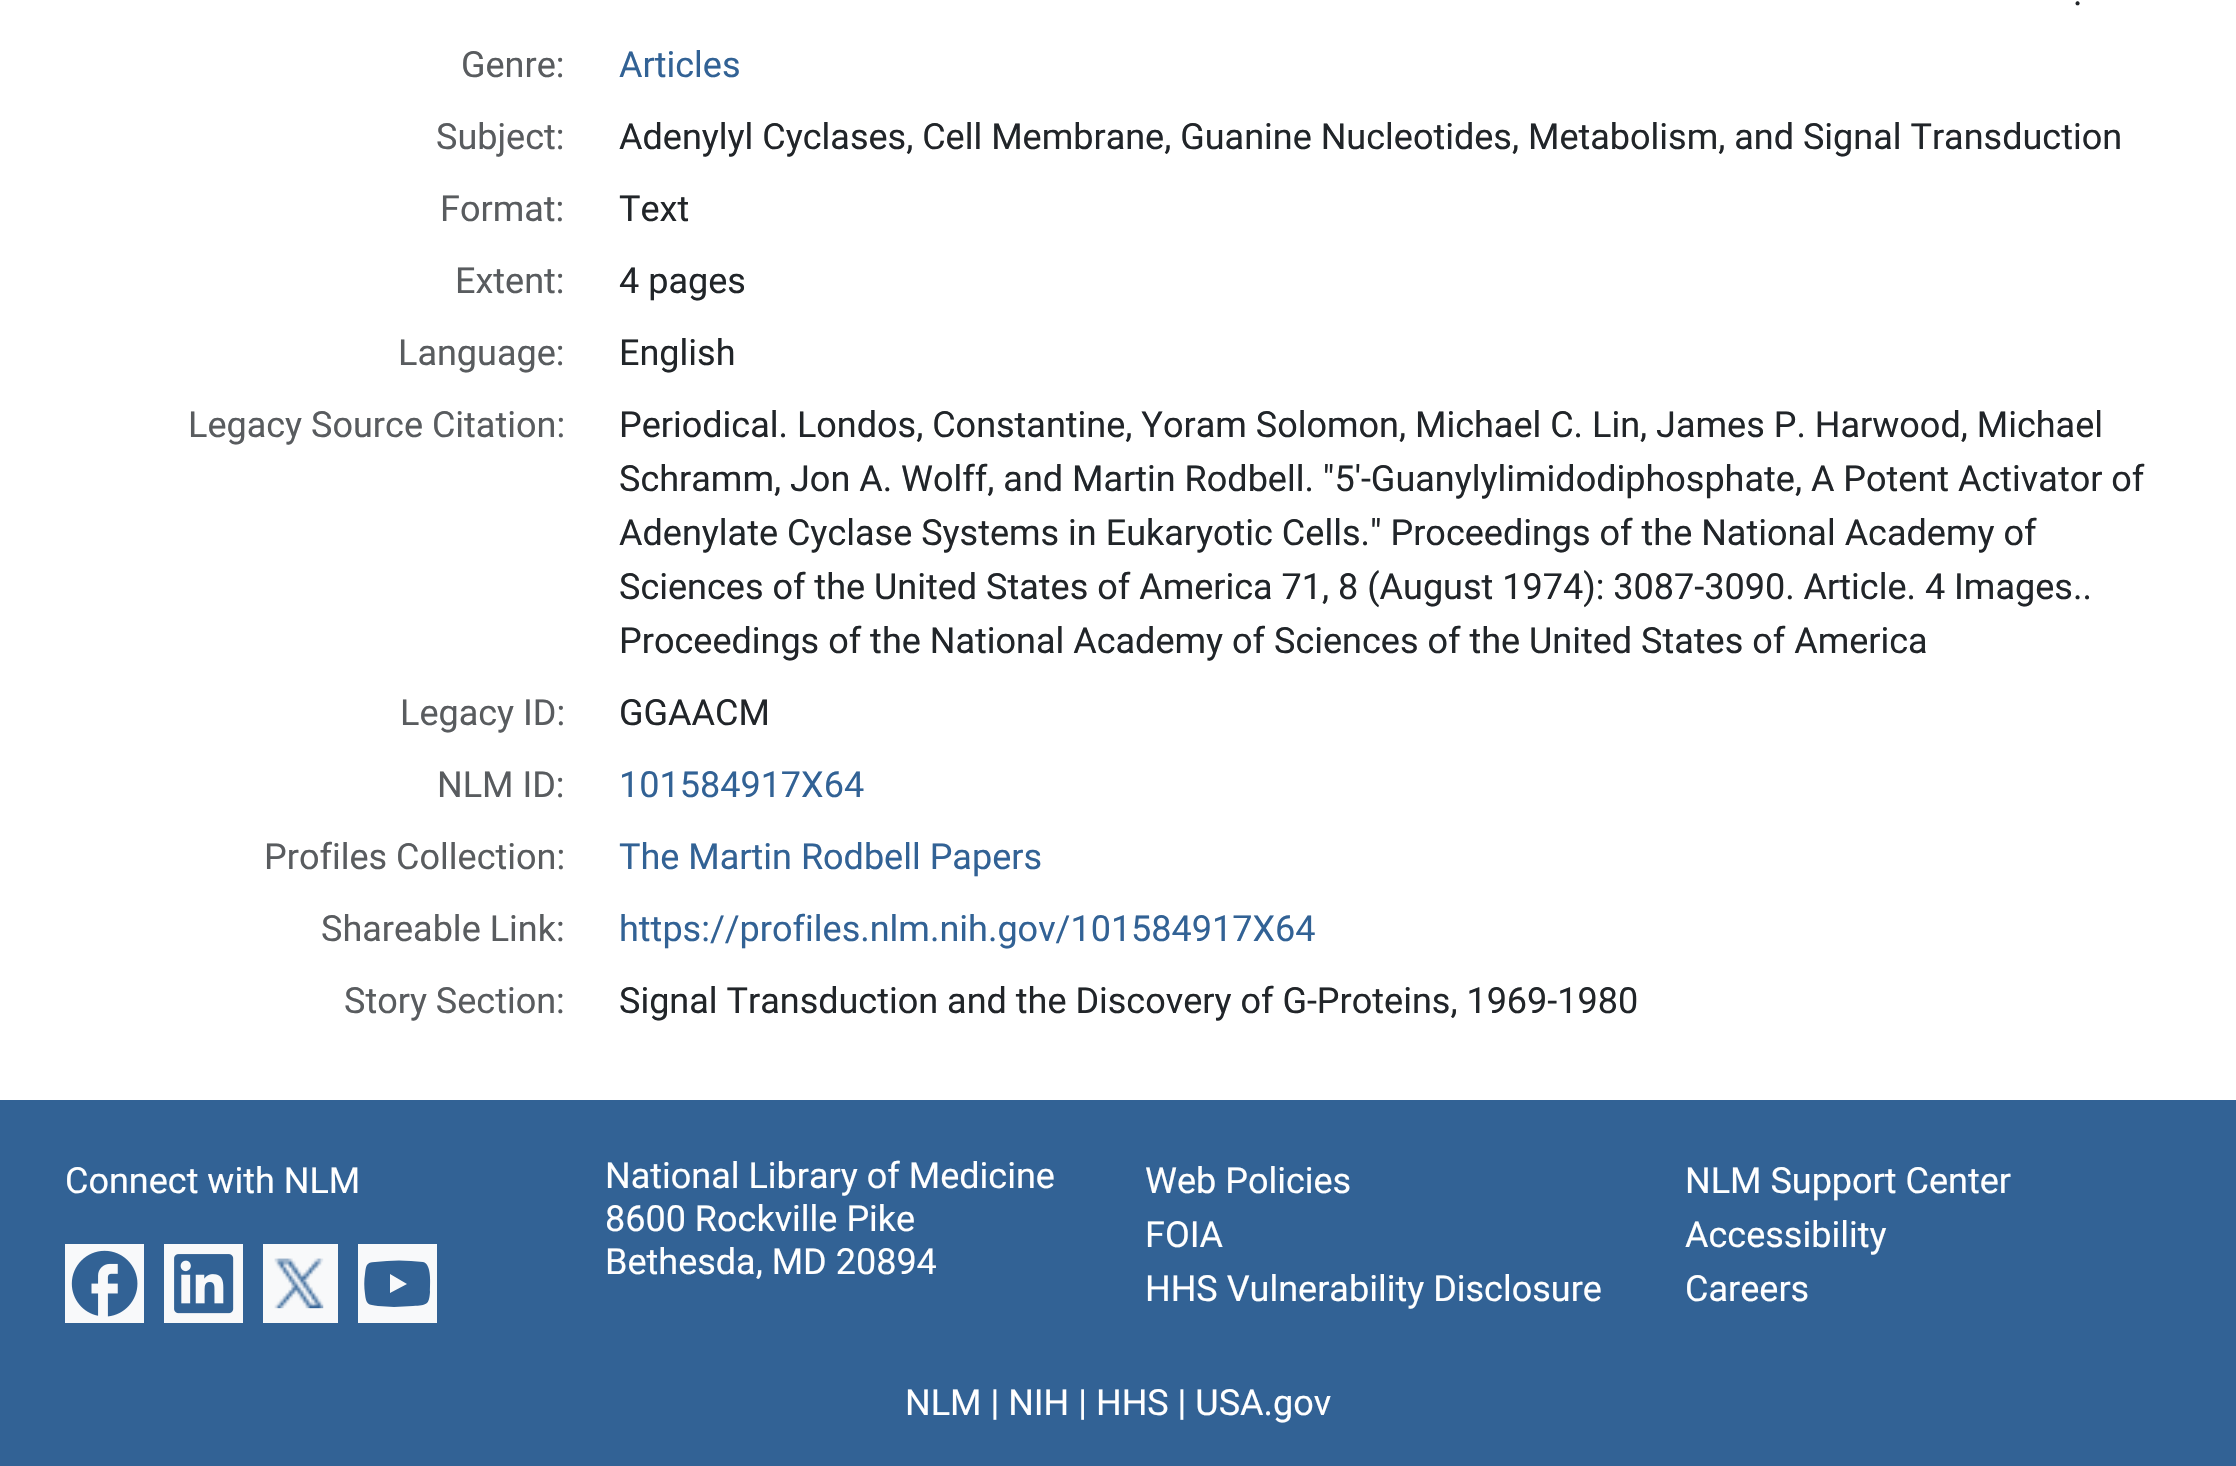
void draw(SkCanvas* canvas) {
    SkPaint paint;
    paint.setAntiAlias(true);
    canvas->clear(0xFFFFFFFF);
    SkFont font1(fontMgr->matchFamilyStyle("Roboto", SkFontStyle::Normal()), 36);
    font1.setSubpixel(true);
    paint.setColor(0xFF212529);
    canvas->drawString(".", 2073, 5, font1, paint);
    paint.setColor(0xFF595C5F);
    canvas->drawString("Genre:", 461, 77, font1, paint);
    paint.setColor(0xFF326295);
    canvas->drawString("Articles", 619, 77, font1, paint);
    paint.setColor(0xFF595C5F);
    canvas->drawString("Subject:", 436, 149, font1, paint);
    paint.setColor(0xFF212529);
    canvas->drawString("Adenylyl Cyclases, Cell Membrane, Guanine Nucleotides, Metabolism, and Signal Transduction", 619, 149, font1, paint);
    paint.setColor(0xFF595C5F);
    canvas->drawString("Format:", 440, 221, font1, paint);
    paint.setColor(0xFF212529);
    canvas->drawString("Text", 619, 221, font1, paint);
    paint.setColor(0xFF595C5F);
    canvas->drawString("Extent:", 455, 293, font1, paint);
    paint.setColor(0xFF212529);
    canvas->drawString("4 pages", 619, 293, font1, paint);
    paint.setColor(0xFF595C5F);
    canvas->drawString("Language:", 398, 365, font1, paint);
    paint.setColor(0xFF212529);
    canvas->drawString("English", 619, 365, font1, paint);
    paint.setColor(0xFF595C5F);
    canvas->drawString("Legacy Source Citation:", 188, 437, font1, paint);
    paint.setColor(0xFF212529);
    canvas->drawString("Periodical. Londos, Constantine, Yoram Solomon, Michael C. Lin, James P. Harwood, Michael", 619, 437, font1, paint);
    canvas->drawString("Schramm, Jon A. Wolff, and Martin Rodbell. \"5'-Guanylylimidodiphosphate, A Potent Activator of", 619, 491, font1, paint);
    canvas->drawString("Adenylate Cyclase Systems in Eukaryotic Cells.\" Proceedings of the National Academy of", 619, 545, font1, paint);
    canvas->drawString("Sciences of the United States of America 71, 8 (August 1974): 3087-3090. Article. 4 Images..", 619, 599, font1, paint);
    canvas->drawString("Proceedings of the National Academy of Sciences of the United States of America", 619, 653, font1, paint);
    paint.setColor(0xFF595C5F);
    canvas->drawString("Legacy ID:", 400, 725, font1, paint);
    paint.setColor(0xFF212529);
    canvas->drawString("GGAACM", 619, 725, font1, paint);
    paint.setColor(0xFF595C5F);
    canvas->drawString("NLM ID:", 437, 797, font1, paint);
    paint.setColor(0xFF326295);
    canvas->drawString("101584917X64", 619, 797, font1, paint);
    paint.setColor(0xFF595C5F);
    canvas->drawString("Profiles Collection:", 264, 869, font1, paint);
    paint.setColor(0xFF326295);
    canvas->drawString("The Martin Rodbell Papers", 619, 869, font1, paint);
    paint.setColor(0xFF595C5F);
    canvas->drawString("Shareable Link:", 321, 941, font1, paint);
    paint.setColor(0xFF326295);
    canvas->drawString("https://profiles.nlm.nih.gov/101584917X64", 619, 941, font1, paint);
    paint.setColor(0xFF595C5F);
    canvas->drawString("Story Section:", 344, 1013, font1, paint);
    paint.setColor(0xFF212529);
    canvas->drawString("Signal Transduction and the Discovery of G-Proteins, 1969-1980", 619, 1013, font1, paint);
    paint.setColor(0xFF326295);
    canvas->drawRect(SkRect::MakeXYWH(0, 1100, 2236, 366), paint);
    paint.setColor(0xFFFFFFFF);
    canvas->drawString("Connect with NLM", 65, 1193, font1, paint);
    paint.setColor(0xFFF8F9FA);
    canvas->drawRect(SkRect::MakeXYWH(65, 1244, 79, 79), paint);
    canvas->drawImageRect(SkImages::DeferredFromEncodedData(SkData::MakeFromFileName("img1.png")), SkRect::MakeXYWH(71, 1250, 67, 67), SkSamplingOptions());
    canvas->drawRect(SkRect::MakeXYWH(164, 1244, 79, 79), paint);
    canvas->drawImageRect(SkImages::DeferredFromEncodedData(SkData::MakeFromFileName("img2.png")), SkRect::MakeXYWH(174, 1254, 60, 60), SkSamplingOptions());
    canvas->drawRect(SkRect::MakeXYWH(263, 1244, 75, 79), paint);
    canvas->drawImageRect(SkImages::DeferredFromEncodedData(SkData::MakeFromFileName("img3.png")), SkRect::MakeXYWH(274, 1258, 50, 51), SkSamplingOptions());
    canvas->drawRect(SkRect::MakeXYWH(358, 1244, 79, 79), paint);
    paint.setColor(0xFF326295);
    canvas->drawPath(SkPathBuilder().moveTo(423, 1262).cubicTo(432, 1264, 430, 1284, 430, 1292).cubicTo(429, 1305, 427, 1305, 413, 1306).lineTo(394, 1307).lineTo(378, 1306).cubicTo(368, 1305, 366, 1304, 365, 1294).cubicTo(364, 1287, 364, 1280, 365, 1274).cubicTo(366, 1266, 366, 1262, 375, 1262).cubicTo(391, 1260, 407, 1260, 423, 1262).close().moveTo(390, 1274).lineTo(390, 1293).lineTo(407, 1284).close().detach(), paint);
    paint.setColor(0xFFFFFFFF);
    canvas->drawString("National Library of Medicine", 605, 1188, font1, paint);
    canvas->drawString("8600 Rockville Pike", 605, 1231, font1, paint);
    canvas->drawString("Bethesda, MD 20894", 605, 1274, font1, paint);
    canvas->drawString("Web Policies", 1145, 1193, font1, paint);
    canvas->drawString("FOIA", 1145, 1247, font1, paint);
    canvas->drawString("HHS Vulnerability Disclosure", 1145, 1301, font1, paint);
    canvas->drawString("NLM Support Center", 1685, 1193, font1, paint);
    canvas->drawString("Accessibility", 1685, 1247, font1, paint);
    canvas->drawString("Careers", 1685, 1301, font1, paint);
    canvas->drawString("NLM | NIH | HHS | USA.gov", 905, 1415, font1, paint);
}
